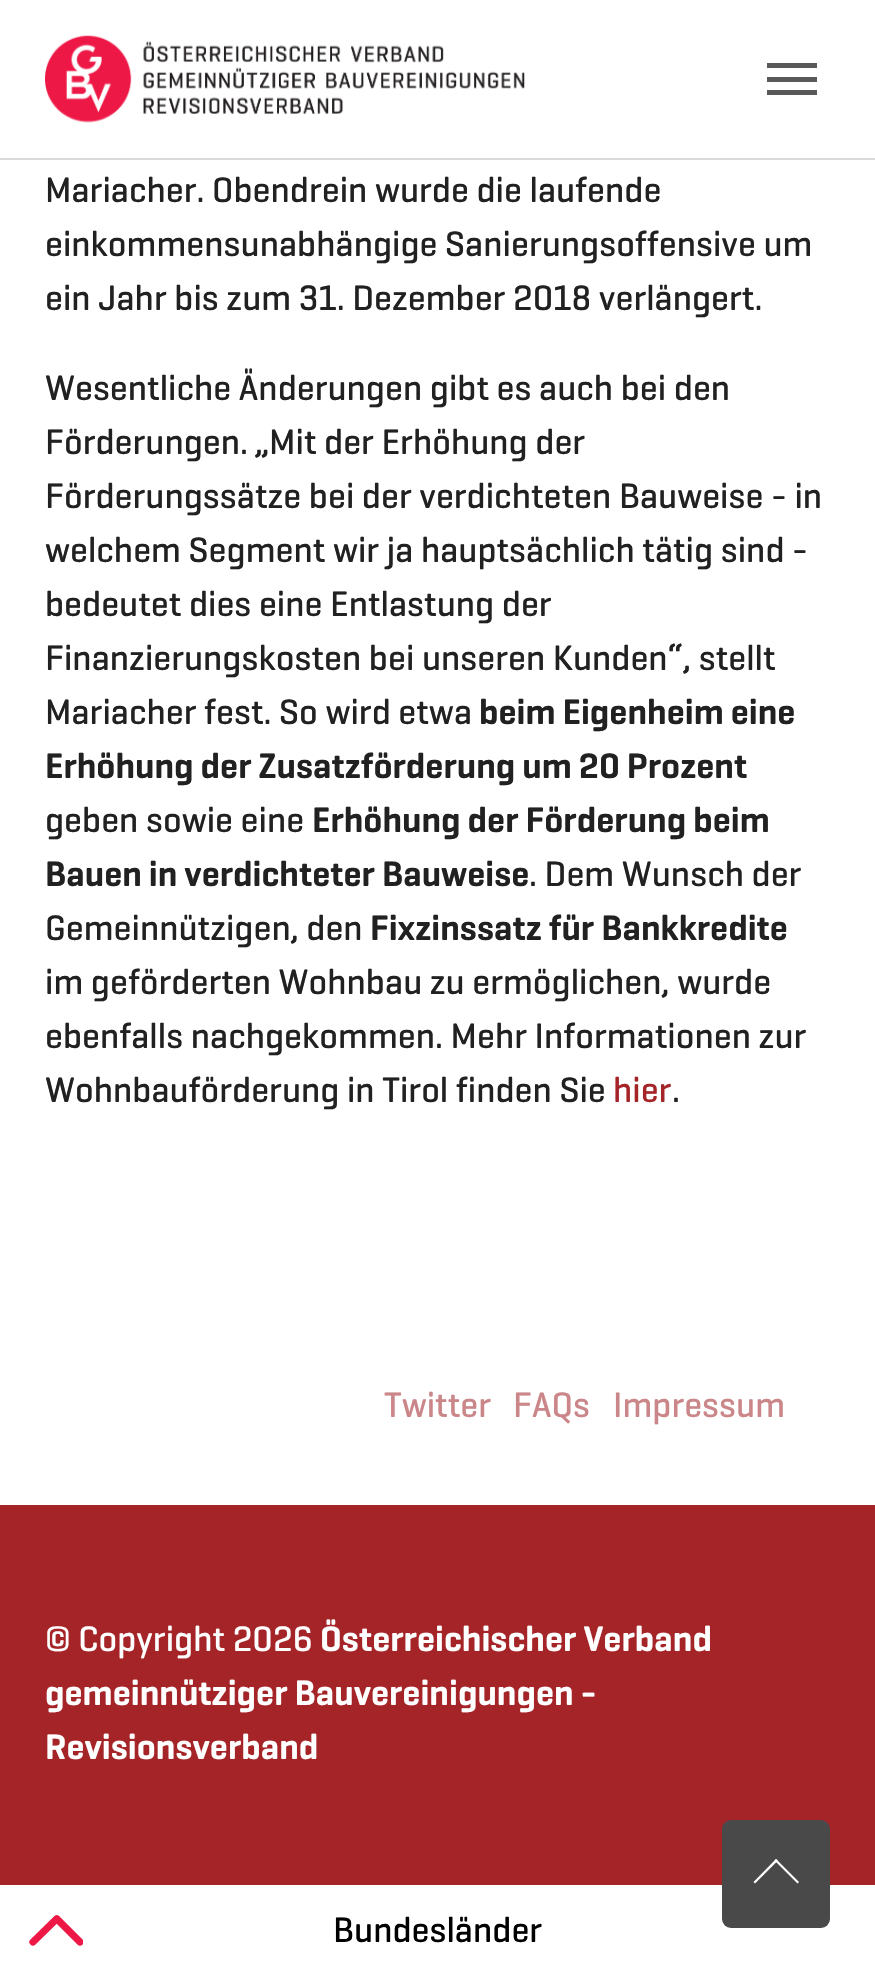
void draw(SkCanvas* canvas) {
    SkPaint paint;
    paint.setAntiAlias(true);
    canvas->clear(0xFFFFFFFF);
    paint.setColor(0xFFD9D9D9);
    canvas->drawRect(SkRect::MakeXYWH(0, 158, 875, 2), paint);
    canvas->drawImageRect(SkImages::DeferredFromEncodedData(SkData::MakeFromFileName("img1.png")), SkRect::MakeXYWH(45, 35, 480, 88), SkSamplingOptions());
    paint.setColor(0xFF595959);
    canvas->drawRect(SkRect::MakeXYWH(767, 77, 50, 5), paint);
    canvas->drawRect(SkRect::MakeXYWH(767, 63, 50, 5), paint);
    canvas->drawRect(SkRect::MakeXYWH(767, 90, 50, 5), paint);
    SkFont font1(fontMgr->matchFamilyStyle("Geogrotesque", SkFontStyle(500, SkFontStyle::kNormal_Width, SkFontStyle::kUpright_Slant)), 36);
    font1.setSubpixel(true);
    paint.setColor(0xFF212121);
    canvas->drawString("Mariacher. Obendrein wurde die laufende", 45, 202, font1, paint);
    canvas->drawString("einkommensunabhängige Sanierungsoffensive um", 45, 256, font1, paint);
    canvas->drawString("ein Jahr bis zum 31. Dezember 2018 verlängert.", 45, 310, font1, paint);
    canvas->drawString("Wesentliche Änderungen gibt es auch bei den", 45, 400, font1, paint);
    canvas->drawString("Förderungen. „Mit der Erhöhung der", 45, 454, font1, paint);
    canvas->drawString("Förderungssätze bei der verdichteten Bauweise - in", 45, 508, font1, paint);
    canvas->drawString("welchem Segment wir ja hauptsächlich tätig sind -", 45, 562, font1, paint);
    canvas->drawString("bedeutet dies eine Entlastung der", 45, 616, font1, paint);
    canvas->drawString("Finanzierungskosten bei unseren Kunden“, stellt", 45, 670, font1, paint);
    canvas->drawString("Mariacher fest. So wird etwa", 45, 724, font1, paint);
    SkFont font2(fontMgr->matchFamilyStyle("Geogrotesque", SkFontStyle(600, SkFontStyle::kNormal_Width, SkFontStyle::kUpright_Slant)), 36);
    font2.setSubpixel(true);
    canvas->drawString("beim Eigenheim eine", 479, 724, font2, paint);
    canvas->drawString("Erhöhung der Zusatzförderung um 20 Prozent", 45, 778, font2, paint);
    canvas->drawString("geben sowie eine", 45, 832, font1, paint);
    canvas->drawString("Erhöhung der Förderung beim", 312, 832, font2, paint);
    canvas->drawString("Bauen in verdichteter Bauweise", 45, 886, font2, paint);
    canvas->drawString(". Dem Wunsch der", 529, 886, font1, paint);
    canvas->drawString("Gemeinnützigen, den", 45, 940, font1, paint);
    canvas->drawString("Fixzinssatz für Bankkredite", 370, 940, font2, paint);
    canvas->drawString("im geförderten Wohnbau zu ermöglichen, wurde", 45, 994, font1, paint);
    canvas->drawString("ebenfalls nachgekommen. Mehr Informationen zur", 45, 1048, font1, paint);
    canvas->drawString("Wohnbauförderung in Tirol finden Sie", 45, 1102, font1, paint);
    paint.setColor(0xFFA52428);
    canvas->drawString("hier", 613, 1102, font1, paint);
    paint.setColor(0xFF212121);
    canvas->drawString(".", 672, 1102, font1, paint);
    paint.setColor(0xFFCA8688);
    canvas->drawString("Twitter", 384, 1417, font1, paint);
    canvas->drawString("FAQs", 513, 1417, font1, paint);
    canvas->drawString("Impressum", 613, 1417, font1, paint);
    paint.setColor(0xFFA52428);
    canvas->drawRect(SkRect::MakeXYWH(0, 1505, 875, 380), paint);
    paint.setColor(0xFFFFFFFF);
    canvas->drawString("© Copyright 2026", 45, 1651, font1, paint);
    canvas->drawString("Österreichischer Verband", 320, 1651, font2, paint);
    canvas->drawString("gemeinnütziger Bauvereinigungen -", 45, 1705, font2, paint);
    canvas->drawString("Revisionsverband", 45, 1759, font2, paint);
    paint.setStyle(SkPaint::kStroke_Style);
    paint.setStrokeWidth(7.3f);
    paint.setStrokeCap(SkPaint::kRound_Cap);
    paint.setColor(0xFFED1846);
    canvas->drawPath(SkPathBuilder().moveTo(33, 1942).lineTo(56.5f, 1919).detach(), paint);
    canvas->save();
    canvas->clipRect(SkRect::MakeXYWH(29, 1915, 54, 31));
    canvas->drawPath(SkPathBuilder().moveTo(80, 1942).lineTo(57, 1919).detach(), paint);
    canvas->restore();
    paint.setStyle(SkPaint::kFill_Style);
    paint.setColor(0xFF000000);
    canvas->drawString("Bundesländer", 333, 1942, font1, paint);
    paint.setColor(0xFF494949);
    canvas->drawRoundRect(SkRect::MakeXYWH(722, 1820, 108, 108), 9, 9, paint);
    paint.setColor(0xFFFFFFFF);
    canvas->drawPath(SkPathBuilder().moveTo(776, 1859).lineTo(799, 1882).lineTo(797.5f, 1883.5f).lineTo(774.5f, 1860.5f).close().detach(), paint);
    canvas->drawPath(SkPathBuilder().moveTo(776, 1859).lineTo(778, 1860.5f).lineTo(755, 1883.5f).lineTo(753.5f, 1882).close().detach(), paint);
}
